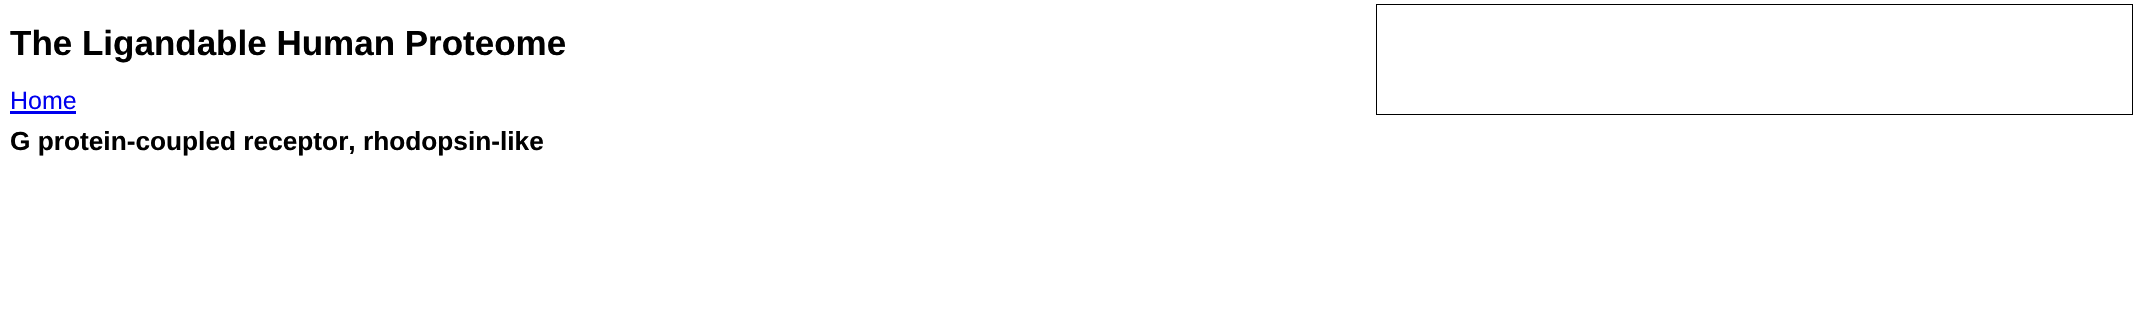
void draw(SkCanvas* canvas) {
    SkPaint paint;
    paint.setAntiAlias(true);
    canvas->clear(0xFFFFFFFF);
    SkFont font1(fontMgr->matchFamilyStyle("Liberation Sans", SkFontStyle::Bold()), 35);
    font1.setSubpixel(true);
    paint.setColor(0xFF000000);
    canvas->drawString("The Ligandable Human Proteome", 10, 55, font1, paint);
    paint.setStyle(SkPaint::kStroke_Style);
    paint.setStrokeWidth(1);
    canvas->drawRect(SkRect::MakeXYWH(1376.5f, 4.5f, 756, 110), paint);
    SkFont font2(fontMgr->matchFamilyStyle("Liberation Sans", SkFontStyle::Normal()), 25);
    font2.setSubpixel(true);
    paint.setStyle(SkPaint::kFill_Style);
    paint.setColor(0xFF0000EE);
    canvas->drawString("Home", 10, 109, font2, paint);
    canvas->drawRect(SkRect::MakeXYWH(10, 111, 66, 3), paint);
    SkFont font3(fontMgr->matchFamilyStyle("Liberation Sans", SkFontStyle::Bold()), 26.25f);
    font3.setSubpixel(true);
    paint.setColor(0xFF000000);
    canvas->drawString("G protein-coupled receptor, rhodopsin-like", 10, 150, font3, paint);
}
